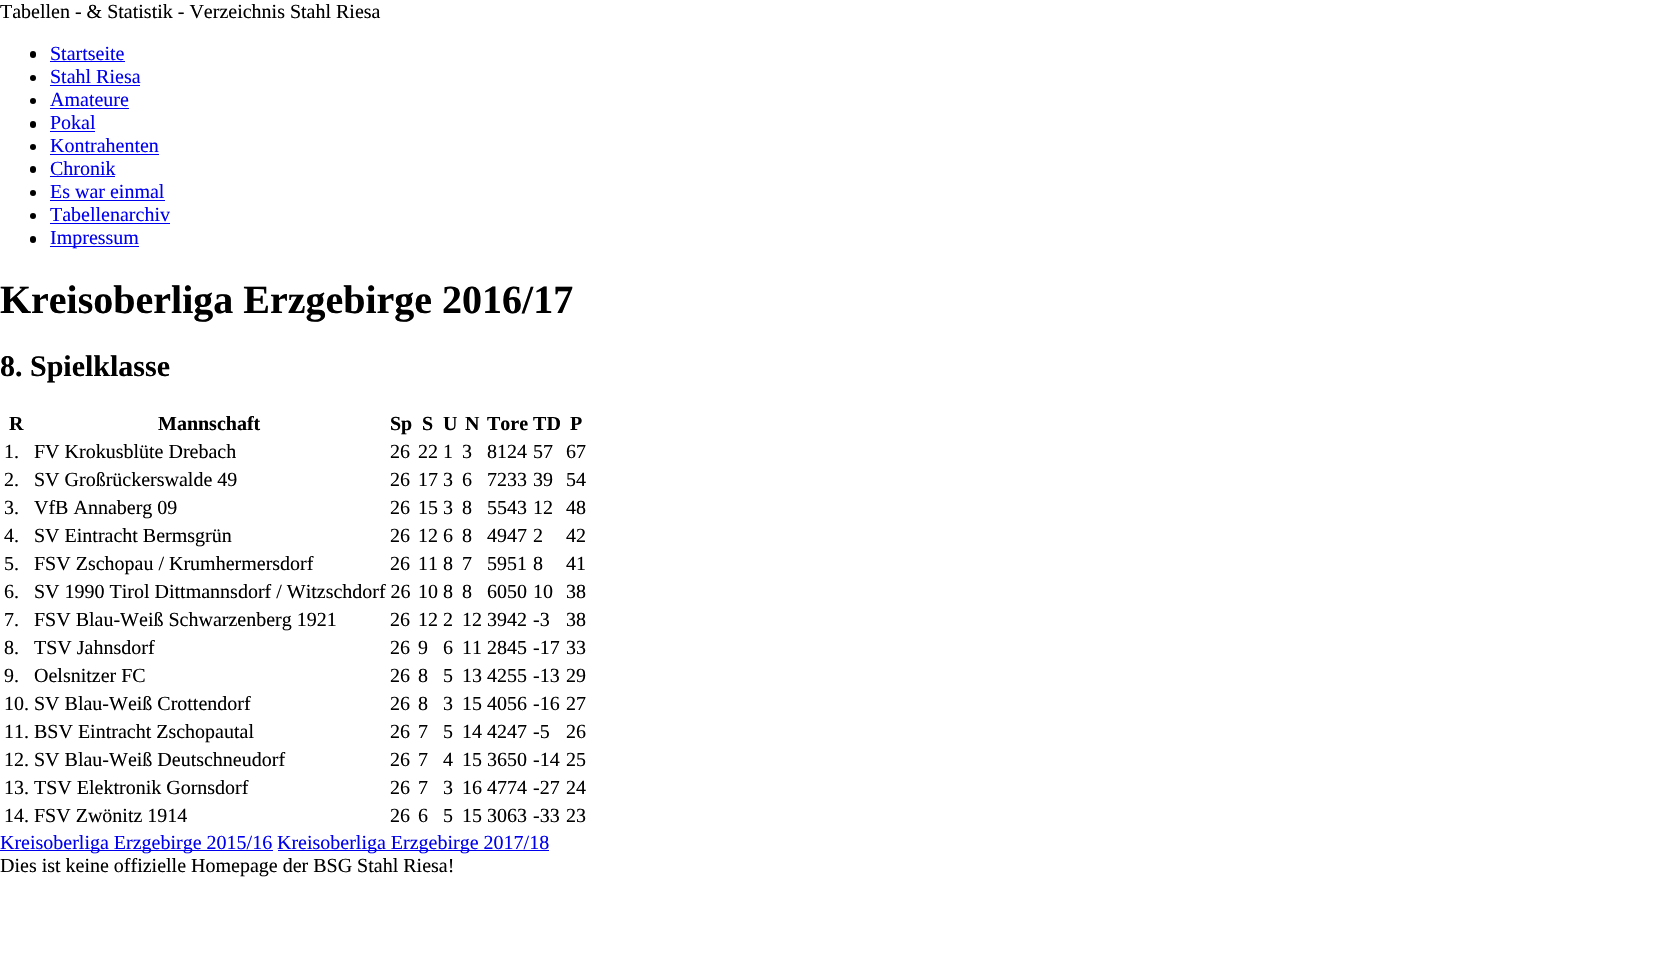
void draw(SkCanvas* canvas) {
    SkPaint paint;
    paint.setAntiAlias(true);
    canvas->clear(0xFFFFFFFF);
    SkFont font1(fontMgr->matchFamilyStyle("Liberation Serif", SkFontStyle::Normal()), 20);
    font1.setSubpixel(true);
    paint.setColor(0xFF000000);
    canvas->drawString("Tabellen - & Statistik - Verzeichnis Stahl Riesa", 0, 18, font1, paint);
    canvas->drawRoundRect(SkRect::MakeXYWH(30, 51, 6, 7), 3, 3, paint);
    paint.setColor(0xFF0000EE);
    canvas->drawString("Startseite", 50, 60, font1, paint);
    canvas->drawRect(SkRect::MakeXYWH(50, 61, 75, 1), paint);
    paint.setColor(0xFF000000);
    canvas->drawCircle(33, 78, 3, paint);
    paint.setColor(0xFF0000EE);
    canvas->drawString("Stahl Riesa", 50, 83, font1, paint);
    canvas->drawRect(SkRect::MakeXYWH(50, 85, 90, 1), paint);
    paint.setColor(0xFF000000);
    canvas->drawCircle(33, 101, 3, paint);
    paint.setColor(0xFF0000EE);
    canvas->drawString("Amateure", 50, 106, font1, paint);
    canvas->drawRect(SkRect::MakeXYWH(50, 108, 79, 1), paint);
    paint.setColor(0xFF000000);
    canvas->drawRoundRect(SkRect::MakeXYWH(30, 121, 6, 7), 3, 3, paint);
    paint.setColor(0xFF0000EE);
    canvas->drawString("Pokal", 50, 129, font1, paint);
    canvas->drawRect(SkRect::MakeXYWH(50, 131, 45, 1), paint);
    paint.setColor(0xFF000000);
    canvas->drawCircle(33, 147, 3, paint);
    paint.setColor(0xFF0000EE);
    canvas->drawString("Kontrahenten", 50, 152, font1, paint);
    canvas->drawRect(SkRect::MakeXYWH(50, 154, 109, 1), paint);
    paint.setColor(0xFF000000);
    canvas->drawRoundRect(SkRect::MakeXYWH(30, 166, 6, 7), 3, 3, paint);
    paint.setColor(0xFF0000EE);
    canvas->drawString("Chronik", 50, 175, font1, paint);
    canvas->drawRect(SkRect::MakeXYWH(50, 176, 65, 1), paint);
    paint.setColor(0xFF000000);
    canvas->drawCircle(33, 193, 3, paint);
    paint.setColor(0xFF0000EE);
    canvas->drawString("Es war einmal", 50, 198, font1, paint);
    canvas->drawRect(SkRect::MakeXYWH(50, 200, 115, 1), paint);
    paint.setColor(0xFF000000);
    canvas->drawCircle(33, 216, 3, paint);
    paint.setColor(0xFF0000EE);
    canvas->drawString("Tabellenarchiv", 50, 221, font1, paint);
    canvas->drawRect(SkRect::MakeXYWH(50, 223, 120, 1), paint);
    paint.setColor(0xFF000000);
    canvas->drawRoundRect(SkRect::MakeXYWH(30, 236, 6, 7), 3, 3, paint);
    paint.setColor(0xFF0000EE);
    canvas->drawRect(SkRect::MakeXYWH(50, 246, 89, 1), paint);
    canvas->drawString("Impressum", 50, 244, font1, paint);
    SkFont font2(fontMgr->matchFamilyStyle("Liberation Serif", SkFontStyle::Bold()), 40);
    font2.setSubpixel(true);
    paint.setColor(0xFF000000);
    canvas->drawString("Kreisoberliga Erzgebirge 2016/17", 0, 313, font2, paint);
    SkFont font3(fontMgr->matchFamilyStyle("Liberation Serif", SkFontStyle::Bold()), 30);
    font3.setSubpixel(true);
    canvas->drawString("8. Spielklasse", 0, 376, font3, paint);
    SkFont font4(fontMgr->matchFamilyStyle("Liberation Serif", SkFontStyle::Bold()), 20);
    font4.setSubpixel(true);
    canvas->drawString("R", 9, 430, font4, paint);
    canvas->drawString("Mannschaft", 158, 430, font4, paint);
    canvas->drawString("Sp", 390, 430, font4, paint);
    canvas->drawString("S", 422, 430, font4, paint);
    canvas->drawString("U", 443, 430, font4, paint);
    canvas->drawString("N", 465, 430, font4, paint);
    canvas->drawString("Tore TD", 487, 430, font4, paint);
    canvas->drawString("P", 570, 430, font4, paint);
    canvas->drawString("1.", 4, 458, font1, paint);
    canvas->drawString("FV Krokusblüte Drebach", 34, 458, font1, paint);
    canvas->drawString("26", 390, 458, font1, paint);
    canvas->drawString("22 1", 418, 458, font1, paint);
    canvas->drawString("3", 462, 458, font1, paint);
    canvas->drawString("8124", 487, 458, font1, paint);
    canvas->drawString("57", 533, 458, font1, paint);
    canvas->drawString("67", 566, 458, font1, paint);
    canvas->drawString("2.", 4, 486, font1, paint);
    canvas->drawString("SV Großrückerswalde 49", 34, 486, font1, paint);
    canvas->drawString("26", 390, 486, font1, paint);
    canvas->drawString("17 3", 418, 486, font1, paint);
    canvas->drawString("6", 462, 486, font1, paint);
    canvas->drawString("7233", 487, 486, font1, paint);
    canvas->drawString("39", 533, 486, font1, paint);
    canvas->drawString("54", 566, 486, font1, paint);
    canvas->drawString("3.", 4, 514, font1, paint);
    canvas->drawString("VfB Annaberg 09", 34, 514, font1, paint);
    canvas->drawString("26", 390, 514, font1, paint);
    canvas->drawString("15 3", 418, 514, font1, paint);
    canvas->drawString("8", 462, 514, font1, paint);
    canvas->drawString("5543", 487, 514, font1, paint);
    canvas->drawString("12", 533, 514, font1, paint);
    canvas->drawString("48", 566, 514, font1, paint);
    canvas->drawString("4.", 4, 542, font1, paint);
    canvas->drawString("SV Eintracht Bermsgrün", 34, 542, font1, paint);
    canvas->drawString("26", 390, 542, font1, paint);
    canvas->drawString("12 6", 418, 542, font1, paint);
    canvas->drawString("8", 462, 542, font1, paint);
    canvas->drawString("4947", 487, 542, font1, paint);
    canvas->drawString("2", 533, 542, font1, paint);
    canvas->drawString("42", 566, 542, font1, paint);
    canvas->drawString("5.", 4, 570, font1, paint);
    canvas->drawString("FSV Zschopau / Krumhermersdorf", 34, 570, font1, paint);
    canvas->drawString("26", 390, 570, font1, paint);
    canvas->drawString("11 8", 418, 570, font1, paint);
    canvas->drawString("7", 462, 570, font1, paint);
    canvas->drawString("5951", 487, 570, font1, paint);
    canvas->drawString("8", 533, 570, font1, paint);
    canvas->drawString("41", 566, 570, font1, paint);
    canvas->drawString("6.", 4, 598, font1, paint);
    canvas->drawString("SV 1990 Tirol Dittmannsdorf / Witzschdorf 26", 34, 598, font1, paint);
    canvas->drawString("10 8", 418, 598, font1, paint);
    canvas->drawString("8", 462, 598, font1, paint);
    canvas->drawString("6050", 487, 598, font1, paint);
    canvas->drawString("10", 533, 598, font1, paint);
    canvas->drawString("38", 566, 598, font1, paint);
    canvas->drawString("7.", 4, 626, font1, paint);
    canvas->drawString("FSV Blau-Weiß Schwarzenberg 1921", 34, 626, font1, paint);
    canvas->drawString("26", 390, 626, font1, paint);
    canvas->drawString("12 2", 418, 626, font1, paint);
    canvas->drawString("12 3942", 462, 626, font1, paint);
    canvas->drawString("-3", 533, 626, font1, paint);
    canvas->drawString("38", 566, 626, font1, paint);
    canvas->drawString("8.", 4, 654, font1, paint);
    canvas->drawString("TSV Jahnsdorf", 34, 654, font1, paint);
    canvas->drawString("26", 390, 654, font1, paint);
    canvas->drawString("9", 418, 654, font1, paint);
    canvas->drawString("6", 443, 654, font1, paint);
    canvas->drawString("11 2845", 462, 654, font1, paint);
    canvas->drawString("-17", 533, 654, font1, paint);
    canvas->drawString("33", 566, 654, font1, paint);
    canvas->drawString("9.", 4, 682, font1, paint);
    canvas->drawString("Oelsnitzer FC", 34, 682, font1, paint);
    canvas->drawString("26", 390, 682, font1, paint);
    canvas->drawString("8", 418, 682, font1, paint);
    canvas->drawString("5", 443, 682, font1, paint);
    canvas->drawString("13 4255", 462, 682, font1, paint);
    canvas->drawString("-13", 533, 682, font1, paint);
    canvas->drawString("29", 566, 682, font1, paint);
    canvas->drawString("10. SV Blau-Weiß Crottendorf", 4, 710, font1, paint);
    canvas->drawString("26", 390, 710, font1, paint);
    canvas->drawString("8", 418, 710, font1, paint);
    canvas->drawString("3", 443, 710, font1, paint);
    canvas->drawString("15 4056", 462, 710, font1, paint);
    canvas->drawString("-16", 533, 710, font1, paint);
    canvas->drawString("27", 566, 710, font1, paint);
    canvas->drawString("11. BSV Eintracht Zschopautal", 4, 738, font1, paint);
    canvas->drawString("26", 390, 738, font1, paint);
    canvas->drawString("7", 418, 738, font1, paint);
    canvas->drawString("5", 443, 738, font1, paint);
    canvas->drawString("14 4247", 462, 738, font1, paint);
    canvas->drawString("-5", 533, 738, font1, paint);
    canvas->drawString("26", 566, 738, font1, paint);
    canvas->drawString("12. SV Blau-Weiß Deutschneudorf", 4, 766, font1, paint);
    canvas->drawString("26", 390, 766, font1, paint);
    canvas->drawString("7", 418, 766, font1, paint);
    canvas->drawString("4", 443, 766, font1, paint);
    canvas->drawString("15 3650", 462, 766, font1, paint);
    canvas->drawString("-14", 533, 766, font1, paint);
    canvas->drawString("25", 566, 766, font1, paint);
    canvas->drawString("13. TSV Elektronik Gornsdorf", 4, 794, font1, paint);
    canvas->drawString("26", 390, 794, font1, paint);
    canvas->drawString("7", 418, 794, font1, paint);
    canvas->drawString("3", 443, 794, font1, paint);
    canvas->drawString("16 4774", 462, 794, font1, paint);
    canvas->drawString("-27", 533, 794, font1, paint);
    canvas->drawString("24", 566, 794, font1, paint);
    canvas->drawString("14. FSV Zwönitz 1914", 4, 822, font1, paint);
    canvas->drawString("26", 390, 822, font1, paint);
    canvas->drawString("6", 418, 822, font1, paint);
    canvas->drawString("5", 443, 822, font1, paint);
    canvas->drawString("15 3063", 462, 822, font1, paint);
    canvas->drawString("-33", 533, 822, font1, paint);
    canvas->drawString("23", 566, 822, font1, paint);
    paint.setColor(0xFF0000EE);
    canvas->drawRect(SkRect::MakeXYWH(0, 850, 273, 1), paint);
    canvas->drawString("Kreisoberliga Erzgebirge 2015/16", 0, 849, font1, paint);
    canvas->drawRect(SkRect::MakeXYWH(278, 850, 271, 1), paint);
    canvas->drawString("Kreisoberliga Erzgebirge 2017/18", 277, 849, font1, paint);
    paint.setColor(0xFF000000);
    canvas->drawString("Dies ist keine offizielle Homepage der BSG Stahl Riesa!", 0, 872, font1, paint);
}
